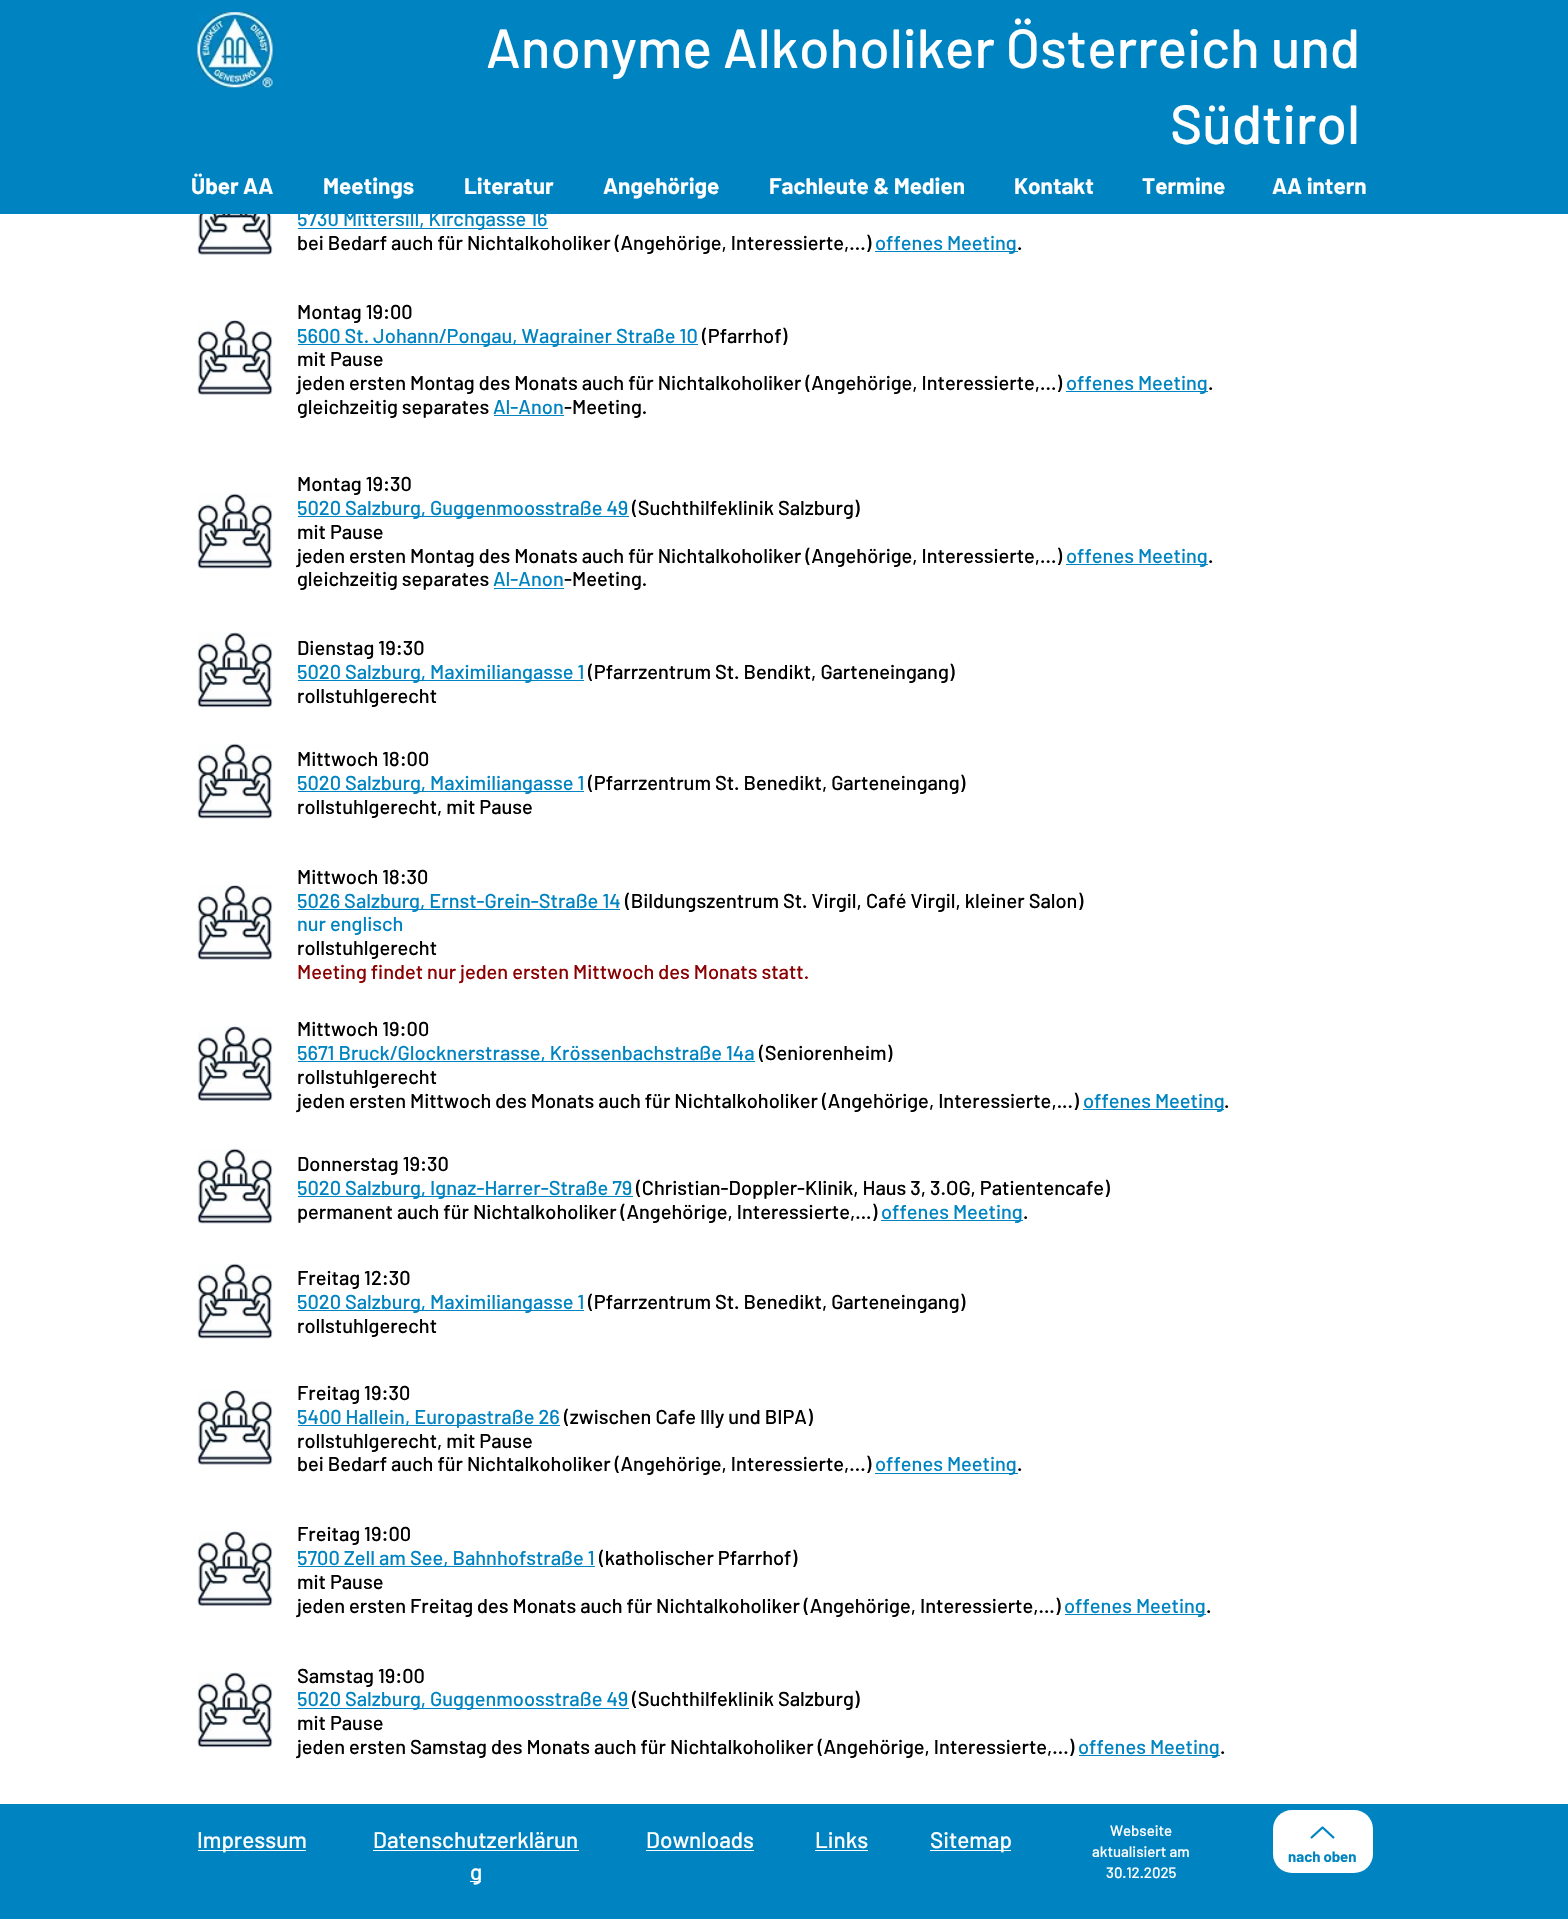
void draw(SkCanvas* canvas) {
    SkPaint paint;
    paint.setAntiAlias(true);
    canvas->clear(0xFFFFFFFF);
    paint.setColor(0xFF0084C1);
    canvas->drawRect(SkRect::MakeXYWH(0, 0, 1568, 214), paint);
    canvas->drawImageRect(SkImages::DeferredFromEncodedData(SkData::MakeFromFileName("img1.png")), SkRect::MakeXYWH(197, 12, 76, 76), SkSamplingOptions());
    SkFont font1(fontMgr->matchFamilyStyle("Barlow", SkFontStyle(500, SkFontStyle::kNormal_Width, SkFontStyle::kUpright_Slant)), 55);
    font1.setSubpixel(true);
    paint.setColor(0xFFFFFFFF);
    canvas->drawString("Anonyme Alkoholiker Österreich und", 486, 68, font1, paint);
    canvas->drawString("Südtirol", 1170, 144, font1, paint);
    SkFont font2(fontMgr->matchFamilyStyle("Barlow", SkFontStyle::Bold()), 22.5f);
    font2.setSubpixel(true);
    canvas->drawString("Über AA", 191, 194, font2, paint);
    canvas->drawString("Meetings", 323, 194, font2, paint);
    canvas->drawString("Literatur", 464, 194, font2, paint);
    canvas->drawString("Angehörige", 603, 194, font2, paint);
    canvas->drawString("Fachleute & Medien", 769, 194, font2, paint);
    canvas->drawString("Kontakt", 1014, 194, font2, paint);
    canvas->drawString("Termine", 1142, 194, font2, paint);
    canvas->drawString("AA intern", 1272, 194, font2, paint);
    canvas->drawImageRect(SkImages::DeferredFromEncodedData(SkData::MakeFromFileName("img2.png")), SkRect::MakeXYWH(197, 214, 76, 41), SkSamplingOptions());
    paint.setColor(0xFF0084C1);
    canvas->drawRect(SkRect::MakeXYWH(298, 228, 250, 1), paint);
    SkFont font3(fontMgr->matchFamilyStyle("Barlow", SkFontStyle(500, SkFontStyle::kNormal_Width, SkFontStyle::kUpright_Slant)), 20);
    font3.setSubpixel(true);
    canvas->drawString("5730 Mittersill, Kirchgasse 16", 297, 226, font3, paint);
    paint.setColor(0xFF000000);
    canvas->drawString("bei Bedarf auch für Nichtalkoholiker (Angehörige, Interessierte,...)", 297, 250, font3, paint);
    paint.setColor(0xFF0084C1);
    canvas->drawRect(SkRect::MakeXYWH(875, 251, 143, 1), paint);
    canvas->drawString("offenes Meeting", 875, 250, font3, paint);
    paint.setColor(0xFF000000);
    canvas->drawString(".", 1017, 250, font3, paint);
    canvas->drawImageRect(SkImages::DeferredFromEncodedData(SkData::MakeFromFileName("img3.png")), SkRect::MakeXYWH(197, 320, 76, 75), SkSamplingOptions());
    canvas->drawString("Montag 19:00", 297, 319, font3, paint);
    paint.setColor(0xFF0084C1);
    canvas->drawRect(SkRect::MakeXYWH(298, 344, 400, 1), paint);
    canvas->drawString("5600 St. Johann/Pongau, Wagrainer Straße 10", 297, 343, font3, paint);
    paint.setColor(0xFF000000);
    canvas->drawString("(Pfarrhof)", 702, 343, font3, paint);
    canvas->drawString("mit Pause", 297, 366, font3, paint);
    canvas->drawString("jeden ersten Montag des Monats auch für Nichtalkoholiker (Angehörige, Interessierte,...)", 297, 390, font3, paint);
    paint.setColor(0xFF0084C1);
    canvas->drawRect(SkRect::MakeXYWH(1066, 391, 142, 1), paint);
    canvas->drawString("offenes Meeting", 1066, 390, font3, paint);
    paint.setColor(0xFF000000);
    canvas->drawString(".", 1208, 390, font3, paint);
    canvas->drawString("gleichzeitig separates", 297, 414, font3, paint);
    paint.setColor(0xFF0084C1);
    canvas->drawString("Al-Anon", 493, 414, font3, paint);
    canvas->drawRect(SkRect::MakeXYWH(494, 415, 70, 1), paint);
    paint.setColor(0xFF000000);
    canvas->drawString("-Meeting.", 564, 414, font3, paint);
    canvas->drawImageRect(SkImages::DeferredFromEncodedData(SkData::MakeFromFileName("img4.png")), SkRect::MakeXYWH(197, 493, 76, 76), SkSamplingOptions());
    canvas->drawString("Montag 19:30", 297, 491, font3, paint);
    paint.setColor(0xFF0084C1);
    canvas->drawRect(SkRect::MakeXYWH(298, 516, 331, 1), paint);
    canvas->drawString("5020 Salzburg, Guggenmoosstraße 49", 297, 515, font3, paint);
    paint.setColor(0xFF000000);
    canvas->drawString("(Suchthilfeklinik Salzburg)", 632, 515, font3, paint);
    canvas->drawString("mit Pause", 297, 539, font3, paint);
    canvas->drawString("jeden ersten Montag des Monats auch für Nichtalkoholiker (Angehörige, Interessierte,...)", 297, 563, font3, paint);
    paint.setColor(0xFF0084C1);
    canvas->drawRect(SkRect::MakeXYWH(1066, 564, 142, 1), paint);
    canvas->drawString("offenes Meeting", 1066, 563, font3, paint);
    paint.setColor(0xFF000000);
    canvas->drawString(".", 1208, 563, font3, paint);
    canvas->drawString("gleichzeitig separates", 297, 586, font3, paint);
    paint.setColor(0xFF0084C1);
    canvas->drawString("Al-Anon", 493, 586, font3, paint);
    canvas->drawRect(SkRect::MakeXYWH(494, 588, 70, 1), paint);
    paint.setColor(0xFF000000);
    canvas->drawString("-Meeting.", 564, 586, font3, paint);
    canvas->drawImageRect(SkImages::DeferredFromEncodedData(SkData::MakeFromFileName("img5.png")), SkRect::MakeXYWH(197, 632, 76, 76), SkSamplingOptions());
    canvas->drawString("Dienstag 19:30", 297, 655, font3, paint);
    paint.setColor(0xFF0084C1);
    canvas->drawRect(SkRect::MakeXYWH(298, 680, 286, 1), paint);
    canvas->drawString("5020 Salzburg, Maximiliangasse 1", 297, 679, font3, paint);
    paint.setColor(0xFF000000);
    canvas->drawString("(Pfarrzentrum St. Bendikt, Garteneingang)", 588, 679, font3, paint);
    canvas->drawString("rollstuhlgerecht", 297, 703, font3, paint);
    canvas->drawImageRect(SkImages::DeferredFromEncodedData(SkData::MakeFromFileName("img4.png")), SkRect::MakeXYWH(197, 743, 76, 76), SkSamplingOptions());
    canvas->drawString("Mittwoch 18:00", 297, 766, font3, paint);
    paint.setColor(0xFF0084C1);
    canvas->drawRect(SkRect::MakeXYWH(298, 791, 286, 1), paint);
    canvas->drawString("5020 Salzburg, Maximiliangasse 1", 297, 790, font3, paint);
    paint.setColor(0xFF000000);
    canvas->drawString("(Pfarrzentrum St. Benedikt, Garteneingang)", 588, 790, font3, paint);
    canvas->drawString("rollstuhlgerecht, mit Pause", 297, 814, font3, paint);
    canvas->drawImageRect(SkImages::DeferredFromEncodedData(SkData::MakeFromFileName("img6.png")), SkRect::MakeXYWH(197, 885, 76, 75), SkSamplingOptions());
    canvas->drawString("Mittwoch 18:30", 297, 884, font3, paint);
    paint.setColor(0xFF0084C1);
    canvas->drawRect(SkRect::MakeXYWH(298, 909, 322, 1), paint);
    canvas->drawString("5026 Salzburg, Ernst-Grein-Straße 14", 297, 908, font3, paint);
    paint.setColor(0xFF000000);
    canvas->drawString("(Bildungszentrum St. Virgil, Café Virgil, kleiner Salon)", 625, 908, font3, paint);
    paint.setColor(0xFF0084C1);
    canvas->drawString("nur englisch", 297, 931, font3, paint);
    paint.setColor(0xFF000000);
    canvas->drawString("rollstuhlgerecht", 297, 955, font3, paint);
    paint.setColor(0xFF8B0000);
    canvas->drawString("Meeting findet nur jeden ersten Mittwoch des Monats statt.", 297, 979, font3, paint);
    canvas->drawImageRect(SkImages::DeferredFromEncodedData(SkData::MakeFromFileName("img7.png")), SkRect::MakeXYWH(197, 1026, 76, 75), SkSamplingOptions());
    paint.setColor(0xFF000000);
    canvas->drawString("Mittwoch 19:00", 297, 1036, font3, paint);
    paint.setColor(0xFF0084C1);
    canvas->drawRect(SkRect::MakeXYWH(298, 1061, 457, 1), paint);
    canvas->drawString("5671 Bruck/Glocknerstrasse, Krössenbachstraße 14a", 297, 1060, font3, paint);
    paint.setColor(0xFF000000);
    canvas->drawString("(Seniorenheim)", 759, 1060, font3, paint);
    canvas->drawString("rollstuhlgerecht", 297, 1084, font3, paint);
    canvas->drawString("jeden ersten Mittwoch des Monats auch für Nichtalkoholiker (Angehörige, Interessierte,...)", 297, 1108, font3, paint);
    paint.setColor(0xFF0084C1);
    canvas->drawRect(SkRect::MakeXYWH(1083, 1109, 141, 1), paint);
    canvas->drawString("offenes Meeting", 1083, 1108, font3, paint);
    paint.setColor(0xFF000000);
    canvas->drawString(".", 1224, 1108, font3, paint);
    canvas->drawImageRect(SkImages::DeferredFromEncodedData(SkData::MakeFromFileName("img4.png")), SkRect::MakeXYWH(197, 1148, 76, 76), SkSamplingOptions());
    canvas->drawString("Donnerstag 19:30", 297, 1171, font3, paint);
    paint.setColor(0xFF0084C1);
    canvas->drawRect(SkRect::MakeXYWH(298, 1196, 335, 1), paint);
    canvas->drawString("5020 Salzburg, Ignaz-Harrer-Straße 79", 297, 1195, font3, paint);
    paint.setColor(0xFF000000);
    canvas->drawString("(Christian-Doppler-Klinik, Haus 3, 3.OG, Patientencafe)", 636, 1195, font3, paint);
    canvas->drawString("permanent auch für Nichtalkoholiker (Angehörige, Interessierte,...)", 297, 1219, font3, paint);
    paint.setColor(0xFF0084C1);
    canvas->drawRect(SkRect::MakeXYWH(881, 1220, 142, 1), paint);
    canvas->drawString("offenes Meeting", 881, 1219, font3, paint);
    paint.setColor(0xFF000000);
    canvas->drawString(".", 1023, 1219, font3, paint);
    canvas->drawImageRect(SkImages::DeferredFromEncodedData(SkData::MakeFromFileName("img4.png")), SkRect::MakeXYWH(197, 1263, 76, 76), SkSamplingOptions());
    canvas->drawString("Freitag 12:30", 297, 1285, font3, paint);
    paint.setColor(0xFF0084C1);
    canvas->drawRect(SkRect::MakeXYWH(298, 1310, 286, 1), paint);
    canvas->drawString("5020 Salzburg, Maximiliangasse 1", 297, 1309, font3, paint);
    paint.setColor(0xFF000000);
    canvas->drawString("(Pfarrzentrum St. Benedikt, Garteneingang)", 588, 1309, font3, paint);
    canvas->drawString("rollstuhlgerecht", 297, 1333, font3, paint);
    canvas->drawImageRect(SkImages::DeferredFromEncodedData(SkData::MakeFromFileName("img8.png")), SkRect::MakeXYWH(197, 1390, 76, 75), SkSamplingOptions());
    canvas->drawString("Freitag 19:30", 297, 1400, font3, paint);
    paint.setColor(0xFF0084C1);
    canvas->drawRect(SkRect::MakeXYWH(298, 1425, 262, 1), paint);
    canvas->drawString("5400 Hallein, Europastraße 26", 297, 1424, font3, paint);
    paint.setColor(0xFF000000);
    canvas->drawString("(zwischen Cafe Illy und BIPA)", 564, 1424, font3, paint);
    canvas->drawString("rollstuhlgerecht, mit Pause", 297, 1448, font3, paint);
    canvas->drawString("bei Bedarf auch für Nichtalkoholiker (Angehörige, Interessierte,...)", 297, 1471, font3, paint);
    paint.setColor(0xFF0084C1);
    canvas->drawRect(SkRect::MakeXYWH(875, 1473, 143, 1), paint);
    canvas->drawString("offenes Meeting", 875, 1471, font3, paint);
    paint.setColor(0xFF000000);
    canvas->drawString(".", 1017, 1471, font3, paint);
    canvas->drawImageRect(SkImages::DeferredFromEncodedData(SkData::MakeFromFileName("img7.png")), SkRect::MakeXYWH(197, 1531, 76, 75), SkSamplingOptions());
    canvas->drawString("Freitag 19:00", 297, 1541, font3, paint);
    paint.setColor(0xFF0084C1);
    canvas->drawRect(SkRect::MakeXYWH(298, 1566, 297, 1), paint);
    canvas->drawString("5700 Zell am See, Bahnhofstraße 1", 297, 1565, font3, paint);
    paint.setColor(0xFF000000);
    canvas->drawString("(katholischer Pfarrhof)", 599, 1565, font3, paint);
    canvas->drawString("mit Pause", 297, 1589, font3, paint);
    canvas->drawString("jeden ersten Freitag des Monats auch für Nichtalkoholiker (Angehörige, Interessierte,...)", 297, 1613, font3, paint);
    paint.setColor(0xFF0084C1);
    canvas->drawRect(SkRect::MakeXYWH(1065, 1614, 141, 1), paint);
    canvas->drawString("offenes Meeting", 1064, 1613, font3, paint);
    paint.setColor(0xFF000000);
    canvas->drawString(".", 1206, 1613, font3, paint);
    canvas->drawImageRect(SkImages::DeferredFromEncodedData(SkData::MakeFromFileName("img5.png")), SkRect::MakeXYWH(197, 1672, 76, 76), SkSamplingOptions());
    canvas->drawString("Samstag 19:00", 297, 1683, font3, paint);
    paint.setColor(0xFF0084C1);
    canvas->drawRect(SkRect::MakeXYWH(298, 1708, 331, 1), paint);
    canvas->drawString("5020 Salzburg, Guggenmoosstraße 49", 297, 1706, font3, paint);
    paint.setColor(0xFF000000);
    canvas->drawString("(Suchthilfeklinik Salzburg)", 632, 1706, font3, paint);
    canvas->drawString("mit Pause", 297, 1730, font3, paint);
    canvas->drawString("jeden ersten Samstag des Monats auch für Nichtalkoholiker (Angehörige, Interessierte,...)", 297, 1754, font3, paint);
    paint.setColor(0xFF0084C1);
    canvas->drawRect(SkRect::MakeXYWH(1079, 1755, 141, 1), paint);
    canvas->drawString("offenes Meeting", 1078, 1754, font3, paint);
    paint.setColor(0xFF000000);
    canvas->drawString(".", 1220, 1754, font3, paint);
    paint.setColor(0xFF0084C1);
    canvas->drawRect(SkRect::MakeXYWH(0, 1804, 1568, 115), paint);
    paint.setColor(0xFFFFFFFF);
    canvas->drawRect(SkRect::MakeXYWH(198, 1850, 108, 1), paint);
    SkFont font4(fontMgr->matchFamilyStyle("Barlow", SkFontStyle(500, SkFontStyle::kNormal_Width, SkFontStyle::kUpright_Slant)), 22.5f);
    font4.setSubpixel(true);
    canvas->drawString("Impressum", 197, 1848, font4, paint);
    canvas->drawString("Datenschutzerklärun", 373, 1848, font4, paint);
    canvas->drawRect(SkRect::MakeXYWH(373, 1850, 206, 1), paint);
    canvas->drawRect(SkRect::MakeXYWH(470, 1881, 11, 1), paint);
    canvas->drawString("g", 470, 1880, font4, paint);
    canvas->drawString("Downloads", 646, 1848, font4, paint);
    canvas->drawRect(SkRect::MakeXYWH(646, 1850, 108, 1), paint);
    canvas->drawString("Links", 815, 1848, font4, paint);
    canvas->drawRect(SkRect::MakeXYWH(815, 1850, 53, 1), paint);
    canvas->drawRect(SkRect::MakeXYWH(930, 1850, 81, 1), paint);
    canvas->drawString("Sitemap", 930, 1848, font4, paint);
    SkFont font5(fontMgr->matchFamilyStyle("Barlow", SkFontStyle(500, SkFontStyle::kNormal_Width, SkFontStyle::kUpright_Slant)), 15);
    font5.setSubpixel(true);
    canvas->drawString("Webseite", 1110, 1836, font5, paint);
    canvas->drawString("aktualisiert am", 1092, 1857, font5, paint);
    canvas->drawString("30.12.2025", 1106, 1878, font5, paint);
    canvas->drawRoundRect(SkRect::MakeXYWH(1273, 1810, 100, 63), 19, 19, paint);
    canvas->drawImageRect(SkImages::DeferredFromEncodedData(SkData::MakeFromFileName("img9.png")), SkRect::MakeXYWH(1310, 1826, 25, 13), SkSamplingOptions());
    SkFont font6(fontMgr->matchFamilyStyle("Barlow", SkFontStyle::Bold()), 15);
    font6.setSubpixel(true);
    paint.setColor(0xFF0084C1);
    canvas->drawString("nach oben", 1288, 1862, font6, paint);
}
